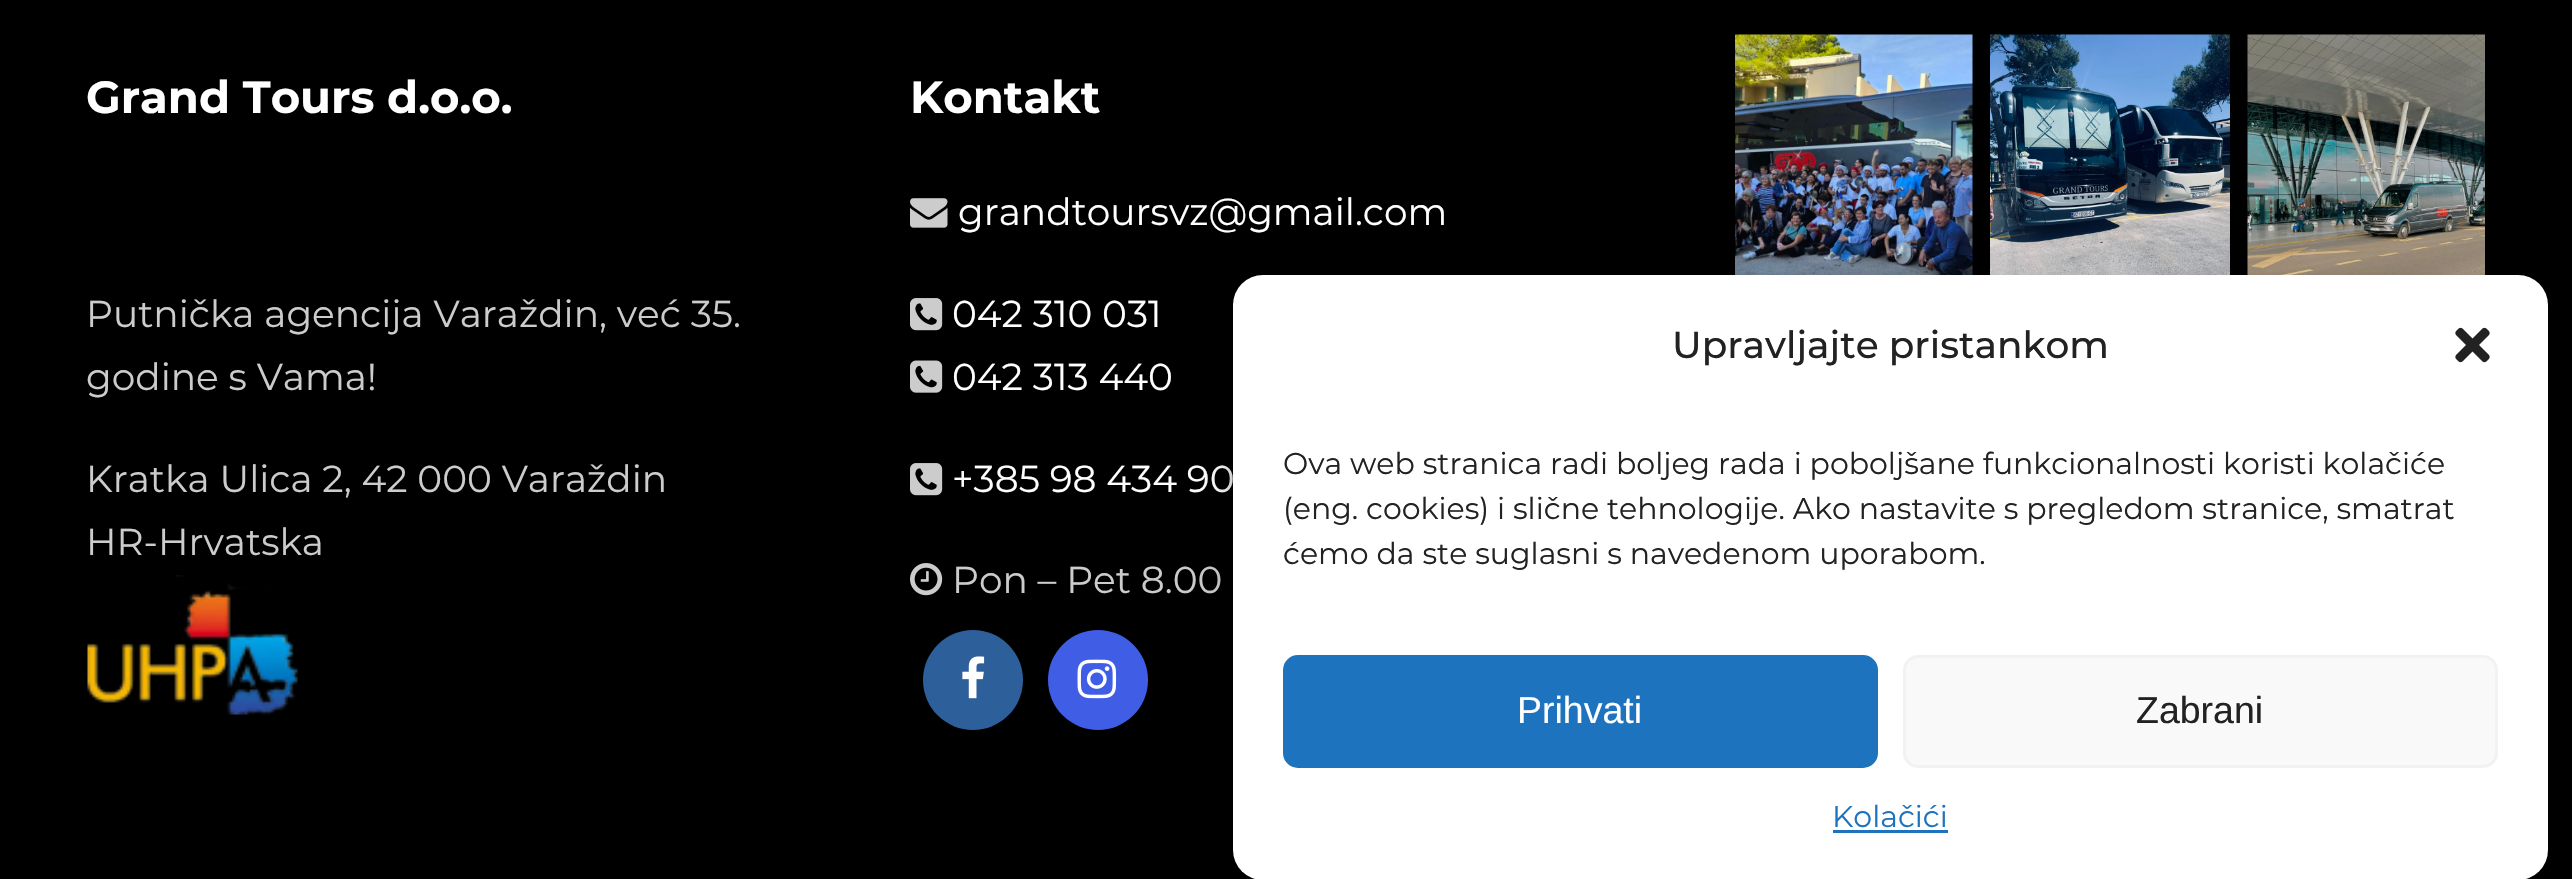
void draw(SkCanvas* canvas) {
    SkPaint paint;
    paint.setAntiAlias(true);
    canvas->clear(0xFF000000);
    SkFont font1(fontMgr->matchFamilyStyle("Montserrat", SkFontStyle::Bold()), 45);
    font1.setSubpixel(true);
    paint.setColor(0xFFFFFFFF);
    canvas->drawString("Grand Tours d.o.o.", 86, 113, font1, paint);
    SkFont font2(fontMgr->matchFamilyStyle("Montserrat", SkFontStyle::Normal()), 37.5f);
    font2.setSubpixel(true);
    paint.setColor(0xFFCCCCCC);
    canvas->drawString("Putnička agencija Varaždin, već 35.", 86, 327, font2, paint);
    canvas->drawString("godine s Vama!", 86, 390, font2, paint);
    canvas->drawString("Kratka Ulica 2, 42 000 Varaždin", 86, 492, font2, paint);
    canvas->drawString("HR-Hrvatska", 86, 555, font2, paint);
    canvas->drawImageRect(SkImages::DeferredFromEncodedData(SkData::MakeFromFileName("img1.png")), SkRect::MakeXYWH(87, 575, 211, 140), SkSamplingOptions());
    paint.setColor(0xFFFFFFFF);
    canvas->drawString("Kontakt", 910, 113, font1, paint);
    canvas->drawImageRect(SkImages::DeferredFromEncodedData(SkData::MakeFromFileName("img2.png")), SkRect::MakeXYWH(910, 198, 38, 30), SkSamplingOptions());
    canvas->drawString("grandtoursvz@gmail.com", 958, 225, font2, paint);
    canvas->drawImageRect(SkImages::DeferredFromEncodedData(SkData::MakeFromFileName("img3.png")), SkRect::MakeXYWH(910, 298, 33, 33), SkSamplingOptions());
    canvas->drawString("042 310 031", 952, 327, font2, paint);
    canvas->drawImageRect(SkImages::DeferredFromEncodedData(SkData::MakeFromFileName("img4.png")), SkRect::MakeXYWH(910, 360, 33, 33), SkSamplingOptions());
    canvas->drawString("042 313 440", 952, 390, font2, paint);
    canvas->drawImageRect(SkImages::DeferredFromEncodedData(SkData::MakeFromFileName("img3.png")), SkRect::MakeXYWH(910, 463, 33, 33), SkSamplingOptions());
    canvas->drawString("+385 98 434 90", 952, 492, font2, paint);
    canvas->drawImageRect(SkImages::DeferredFromEncodedData(SkData::MakeFromFileName("img5.png")), SkRect::MakeXYWH(910, 563, 33, 33), SkSamplingOptions());
    paint.setColor(0xFFCCCCCC);
    canvas->drawString("Pon – Pet 8.00", 952, 593, font2, paint);
    paint.setColor(0xFF2D5F9A);
    canvas->drawCircle(973, 680, 50, paint);
    canvas->drawImageRect(SkImages::DeferredFromEncodedData(SkData::MakeFromFileName("img6.png")), SkRect::MakeXYWH(962, 656, 23, 43), SkSamplingOptions());
    paint.setColor(0xFF405DE6);
    canvas->drawCircle(1098, 680, 50, paint);
    canvas->drawImageRect(SkImages::DeferredFromEncodedData(SkData::MakeFromFileName("img7.png")), SkRect::MakeXYWH(1077, 659, 40, 40), SkSamplingOptions());
    canvas->drawImageRect(SkImages::DeferredFromEncodedData(SkData::MakeFromFileName("img8.png")), SkRect::MakeXYWH(1735, 34, 238, 241), SkSamplingOptions());
    canvas->drawImageRect(SkImages::DeferredFromEncodedData(SkData::MakeFromFileName("img9.png")), SkRect::MakeXYWH(1990, 34, 240, 241), SkSamplingOptions());
    canvas->drawImageRect(SkImages::DeferredFromEncodedData(SkData::MakeFromFileName("img10.png")), SkRect::MakeXYWH(2247, 34, 238, 241), SkSamplingOptions());
    paint.setColor(0x3B000000);
    paint.setMaskFilter(SkMaskFilter::MakeBlur(kNormal_SkBlurStyle, 7.5f));
    canvas->drawRoundRect(SkRect::MakeXYWH(1233, 290, 1315, 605), 30, 30, paint);
    paint.setMaskFilter(nullptr);
    paint.setColor(0x30000000);
    paint.setMaskFilter(SkMaskFilter::MakeBlur(kNormal_SkBlurStyle, 25));
    canvas->drawRoundRect(SkRect::MakeXYWH(1233, 300, 1315, 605), 30, 30, paint);
    paint.setMaskFilter(nullptr);
    paint.setColor(0xFFFFFFFF);
    canvas->drawRoundRect(SkRect::MakeXYWH(1233, 275, 1315, 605), 30, 30, paint);
    SkFont font3(fontMgr->matchFamilyStyle("Montserrat", SkFontStyle(500, SkFontStyle::kNormal_Width, SkFontStyle::kUpright_Slant)), 37.5f);
    font3.setSubpixel(true);
    paint.setColor(0xFF222222);
    canvas->drawString("Upravljajte pristankom", 1672, 358, font3, paint);
    canvas->drawImageRect(SkImages::DeferredFromEncodedData(SkData::MakeFromFileName("img11.png")), SkRect::MakeXYWH(2455, 327, 35, 36), SkSamplingOptions());
    SkFont font4(fontMgr->matchFamilyStyle("Montserrat", SkFontStyle::Normal()), 30);
    font4.setSubpixel(true);
    canvas->drawString("Ova web stranica radi boljeg rada i poboljšane funkcionalnosti koristi kolačiće", 1283, 474, font4, paint);
    canvas->drawString("(eng. cookies) i slične tehnologije. Ako nastavite s pregledom stranice, smatrat", 1283, 519, font4, paint);
    canvas->drawString("ćemo da ste suglasni s navedenom uporabom.", 1283, 564, font4, paint);
    paint.setColor(0xFF1E73BE);
    canvas->drawRoundRect(SkRect::MakeXYWH(1284.5f, 656.5f, 592, 110), 13.5f, 13.5f, paint);
    paint.setStyle(SkPaint::kStroke_Style);
    paint.setStrokeWidth(3);
    canvas->drawRoundRect(SkRect::MakeXYWH(1284.5f, 656.5f, 592, 110), 13.5f, 13.5f, paint);
    SkFont font5(fontMgr->matchFamilyStyle("Liberation Sans", SkFontStyle::Normal()), 37.5f);
    font5.setSubpixel(true);
    paint.setStyle(SkPaint::kFill_Style);
    paint.setColor(0xFFFFFFFF);
    canvas->drawString("Prihvati", 1517, 723, font5, paint);
    paint.setColor(0xFFF9F9F9);
    canvas->drawRoundRect(SkRect::MakeXYWH(1904.5f, 656.5f, 592, 110), 13.5f, 13.5f, paint);
    paint.setStyle(SkPaint::kStroke_Style);
    paint.setColor(0xFFF2F2F2);
    canvas->drawRoundRect(SkRect::MakeXYWH(1904.5f, 656.5f, 592, 110), 13.5f, 13.5f, paint);
    paint.setStyle(SkPaint::kFill_Style);
    paint.setColor(0xFF222222);
    canvas->drawString("Zabrani", 2136, 723, font5, paint);
    paint.setColor(0xFF1E73BE);
    canvas->drawString("Kolačići", 1832, 827, font4, paint);
    canvas->drawRect(SkRect::MakeXYWH(1833, 830, 115, 3), paint);
}
